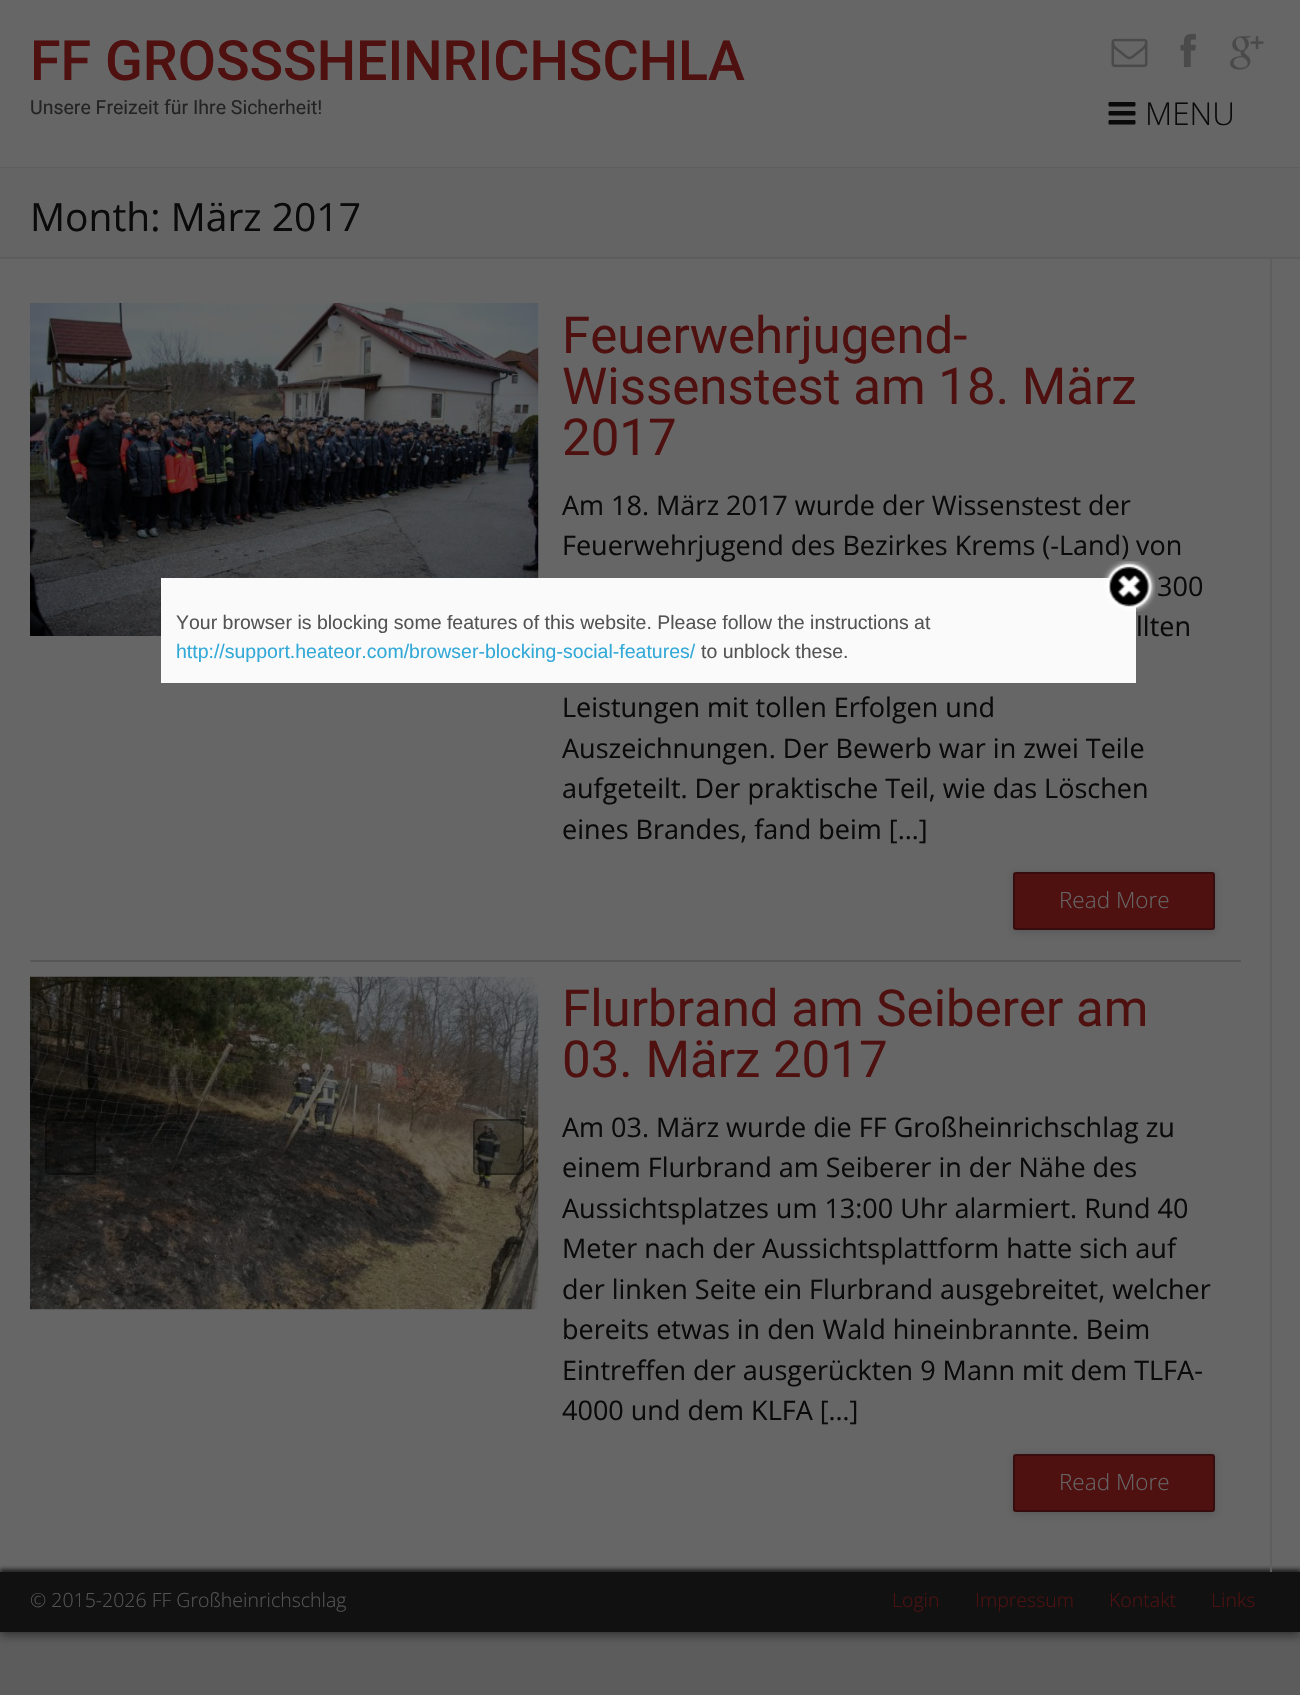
void draw(SkCanvas* canvas) {
    SkPaint paint;
    paint.setAntiAlias(true);
    canvas->clear(0xFF5C5C5C);
    paint.setColor(0x80000000);
    paint.setMaskFilter(SkMaskFilter::MakeBlur(kNormal_SkBlurStyle, 5));
    canvas->drawRect(SkRect::MakeXYWH(0, 3, 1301, 1632), paint);
    paint.setMaskFilter(nullptr);
    paint.setColor(0xFF666666);
    canvas->drawRect(SkRect::MakeXYWH(0, 259, 1300, 1313), paint);
    paint.setColor(0xFF5E5E5E);
    canvas->drawRect(SkRect::MakeXYWH(0, 258, 1300, 1), paint);
    paint.setColor(0xFF646464);
    canvas->drawRect(SkRect::MakeXYWH(0, 167, 1300, 90), paint);
    paint.setColor(0x0F000000);
    canvas->drawPath(SkPathBuilder().moveTo(0, 166).lineTo(0, 168).lineTo(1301, 168).lineTo(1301, 2).lineTo(1300, 2).lineTo(1300, 166).close().detach(), paint);
    paint.setColor(0xFF666666);
    canvas->drawRect(SkRect::MakeXYWH(0, 0, 1300, 167), paint);
    SkFont font1(fontMgr->matchFamilyStyle("Roboto", SkFontStyle(500, SkFontStyle::kNormal_Width, SkFontStyle::kUpright_Slant)), 55.5f);
    font1.setSubpixel(true);
    paint.setColor(0xFF4F1010);
    canvas->drawString("FF GROSSSHEINRICHSCHLA", 30, 80, font1, paint);
    SkFont font2(fontMgr->matchFamilyStyle("Roboto", SkFontStyle::Normal()), 19.5f);
    font2.setSubpixel(true);
    paint.setColor(0xFF232323);
    canvas->drawString("Unsere Freizeit für Ihre Sicherheit!", 30, 114, font2, paint);
    canvas->drawImageRect(SkImages::DeferredFromEncodedData(SkData::MakeFromFileName("img1.png")), SkRect::MakeXYWH(1111, 38, 37, 30), SkSamplingOptions());
    canvas->drawImageRect(SkImages::DeferredFromEncodedData(SkData::MakeFromFileName("img2.png")), SkRect::MakeXYWH(1180, 33, 16, 35), SkSamplingOptions());
    canvas->drawImageRect(SkImages::DeferredFromEncodedData(SkData::MakeFromFileName("img3.png")), SkRect::MakeXYWH(1230, 36, 34, 34), SkSamplingOptions());
    canvas->drawImageRect(SkImages::DeferredFromEncodedData(SkData::MakeFromFileName("img4.png")), SkRect::MakeXYWH(1108, 102, 28, 23), SkSamplingOptions());
    SkFont font3(fontMgr->matchFamilyStyle("Open Sans", SkFontStyle(300, SkFontStyle::kNormal_Width, SkFontStyle::kUpright_Slant)), 31.5f);
    font3.setSubpixel(true);
    paint.setColor(0xFF0A0A0A);
    canvas->drawString("MENU", 1145, 125, font3, paint);
    paint.setColor(0xFF5C5C5C);
    canvas->drawRect(SkRect::MakeXYWH(0, 257, 1300, 1), paint);
    SkFont font4(fontMgr->matchFamilyStyle("Open Sans", SkFontStyle::Normal()), 39);
    font4.setSubpixel(true);
    paint.setColor(0xFF0A0A0A);
    canvas->drawString("Month: März 2017", 30, 231, font4, paint);
    paint.setColor(0xD4141414);
    paint.setMaskFilter(SkMaskFilter::MakeBlur(kNormal_SkBlurStyle, 2));
    canvas->drawRect(SkRect::MakeXYWH(0, 1569, 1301, 60), paint);
    paint.setMaskFilter(nullptr);
    paint.setColor(0xFF5E5E5E);
    canvas->drawRect(SkRect::MakeXYWH(1270, 258, 2, 1314), paint);
    paint.setColor(0xFF575757);
    canvas->drawRect(SkRect::MakeXYWH(30, 960, 1211, 2), paint);
    canvas->drawImageRect(SkImages::DeferredFromEncodedData(SkData::MakeFromFileName("img5.png")), SkRect::MakeXYWH(30, 303, 509, 333), SkSamplingOptions());
    SkFont font5(fontMgr->matchFamilyStyle("Roboto", SkFontStyle::Normal()), 51);
    font5.setSubpixel(true);
    paint.setColor(0xFF4F1010);
    canvas->drawString("Feuerwehrjugend-", 562, 353, font5, paint);
    canvas->drawString("Wissenstest am 18. März", 562, 404, font5, paint);
    canvas->drawString("2017", 562, 455, font5, paint);
    SkFont font6(fontMgr->matchFamilyStyle("Open Sans", SkFontStyle::Normal()), 27);
    font6.setSubpixel(true);
    paint.setColor(0xFF0A0A0A);
    canvas->drawString("Am 18. März 2017 wurde der Wissenstest der", 562, 515, font6, paint);
    canvas->drawString("Feuerwehrjugend des Bezirkes Krems (-Land) von", 562, 555, font6, paint);
    canvas->drawString("300", 1157, 596, font6, paint);
    canvas->drawString("llten", 1136, 636, font6, paint);
    canvas->drawString("Leistungen mit tollen Erfolgen und", 562, 717, font6, paint);
    canvas->drawString("Auszeichnungen. Der Bewerb war in zwei Teile", 562, 758, font6, paint);
    canvas->drawString("aufgeteilt. Der praktische Teil, wie das Löschen", 562, 798, font6, paint);
    canvas->drawString("eines Brandes, fand beim […]", 562, 839, font6, paint);
    paint.setColor(0x26000000);
    paint.setMaskFilter(SkMaskFilter::MakeBlur(kNormal_SkBlurStyle, 4.5f));
    canvas->drawRoundRect(SkRect::MakeXYWH(1013, 873, 202, 59), 3, 3, paint);
    paint.setMaskFilter(nullptr);
    paint.setColor(0xFF4F1010);
    canvas->drawRoundRect(SkRect::MakeXYWH(1013, 872, 202, 58), 3, 3, paint);
    paint.setStyle(SkPaint::kStroke_Style);
    paint.setStrokeWidth(2);
    paint.setColor(0x4D000000);
    canvas->drawRoundRect(SkRect::MakeXYWH(1014, 873, 200, 56), 2, 2, paint);
    SkFont font7(fontMgr->matchFamilyStyle("Open Sans", SkFontStyle(300, SkFontStyle::kNormal_Width, SkFontStyle::kUpright_Slant)), 22.5f);
    font7.setSubpixel(true);
    paint.setStyle(SkPaint::kFill_Style);
    paint.setColor(0xFF666666);
    canvas->drawString("Read More", 1059, 908, font7, paint);
    canvas->drawImageRect(SkImages::DeferredFromEncodedData(SkData::MakeFromFileName("img6.png")), SkRect::MakeXYWH(30, 976, 509, 334), SkSamplingOptions());
    paint.setColor(0x4D000000);
    canvas->drawRoundRect(SkRect::MakeXYWH(45, 1119, 51, 56), 5, 5, paint);
    paint.setStyle(SkPaint::kStroke_Style);
    canvas->drawRoundRect(SkRect::MakeXYWH(46, 1120, 49, 54), 4, 4, paint);
    paint.setStyle(SkPaint::kFill_Style);
    canvas->drawRoundRect(SkRect::MakeXYWH(473, 1119, 51, 56), 5, 5, paint);
    paint.setStyle(SkPaint::kStroke_Style);
    canvas->drawRoundRect(SkRect::MakeXYWH(474, 1120, 49, 54), 4, 4, paint);
    paint.setStyle(SkPaint::kFill_Style);
    paint.setColor(0xFF4F1010);
    canvas->drawString("Flurbrand am Seiberer am", 562, 1026, font5, paint);
    canvas->drawString("03. März 2017", 562, 1077, font5, paint);
    paint.setColor(0xFF0A0A0A);
    canvas->drawString("Am 03. März wurde die FF Großheinrichschlag zu", 562, 1137, font6, paint);
    canvas->drawString("einem Flurbrand am Seiberer in der Nähe des", 562, 1177, font6, paint);
    canvas->drawString("Aussichtsplatzes um 13:00 Uhr alarmiert. Rund 40", 562, 1218, font6, paint);
    canvas->drawString("Meter nach der Aussichtsplattform hatte sich auf", 562, 1258, font6, paint);
    canvas->drawString("der linken Seite ein Flurbrand ausgebreitet, welcher", 562, 1299, font6, paint);
    canvas->drawString("bereits etwas in den Wald hineinbrannte. Beim", 562, 1339, font6, paint);
    canvas->drawString("Eintreffen der ausgerückten 9 Mann mit dem TLFA-", 562, 1380, font6, paint);
    canvas->drawString("4000 und dem KLFA […]", 562, 1420, font6, paint);
    paint.setColor(0x26000000);
    paint.setMaskFilter(SkMaskFilter::MakeBlur(kNormal_SkBlurStyle, 4.5f));
    canvas->drawRoundRect(SkRect::MakeXYWH(1013, 1455, 202, 59), 3, 3, paint);
    paint.setMaskFilter(nullptr);
    paint.setColor(0xFF4F1010);
    canvas->drawRoundRect(SkRect::MakeXYWH(1013, 1454, 202, 58), 3, 3, paint);
    paint.setStyle(SkPaint::kStroke_Style);
    paint.setColor(0x4D000000);
    canvas->drawRoundRect(SkRect::MakeXYWH(1014, 1455, 200, 56), 2, 2, paint);
    paint.setStyle(SkPaint::kFill_Style);
    paint.setColor(0xFF666666);
    canvas->drawString("Read More", 1059, 1490, font7, paint);
    paint.setColor(0xFF111111);
    canvas->drawRect(SkRect::MakeXYWH(0, 1572, 1300, 60), paint);
    SkFont font8(fontMgr->matchFamilyStyle("Open Sans", SkFontStyle(300, SkFontStyle::kNormal_Width, SkFontStyle::kUpright_Slant)), 19.5f);
    font8.setSubpixel(true);
    paint.setColor(0xFF545454);
    canvas->drawString("© 2015-2026 FF Großheinrichschlag", 30, 1607, font8, paint);
    paint.setColor(0xFF4F1010);
    canvas->drawString("Login", 892, 1607, font8, paint);
    canvas->drawString("Impressum", 975, 1607, font8, paint);
    canvas->drawString("Kontakt", 1109, 1607, font8, paint);
    canvas->drawString("Links", 1211, 1607, font8, paint);
    paint.setColor(0xFFFAFAFA);
    canvas->drawRect(SkRect::MakeXYWH(161, 578, 975, 105), paint);
    canvas->drawImageRect(SkImages::DeferredFromEncodedData(SkData::MakeFromFileName("img7.png")), SkRect::MakeXYWH(1103, 561, 53, 51), SkSamplingOptions());
    SkFont font9(fontMgr->matchFamilyStyle("Liberation Sans", SkFontStyle::Normal()), 19.5f);
    font9.setSubpixel(true);
    paint.setColor(0xFF545454);
    canvas->drawString("Your browser is blocking some features of this website. Please follow the instructions at", 176, 629, font9, paint);
    paint.setColor(0xFF33A9D8);
    canvas->drawString("http://support.heateor.com/browser-blocking-social-features/", 176, 658, font9, paint);
    paint.setColor(0xFF545454);
    canvas->drawString("to unblock these.", 701, 658, font9, paint);
}
